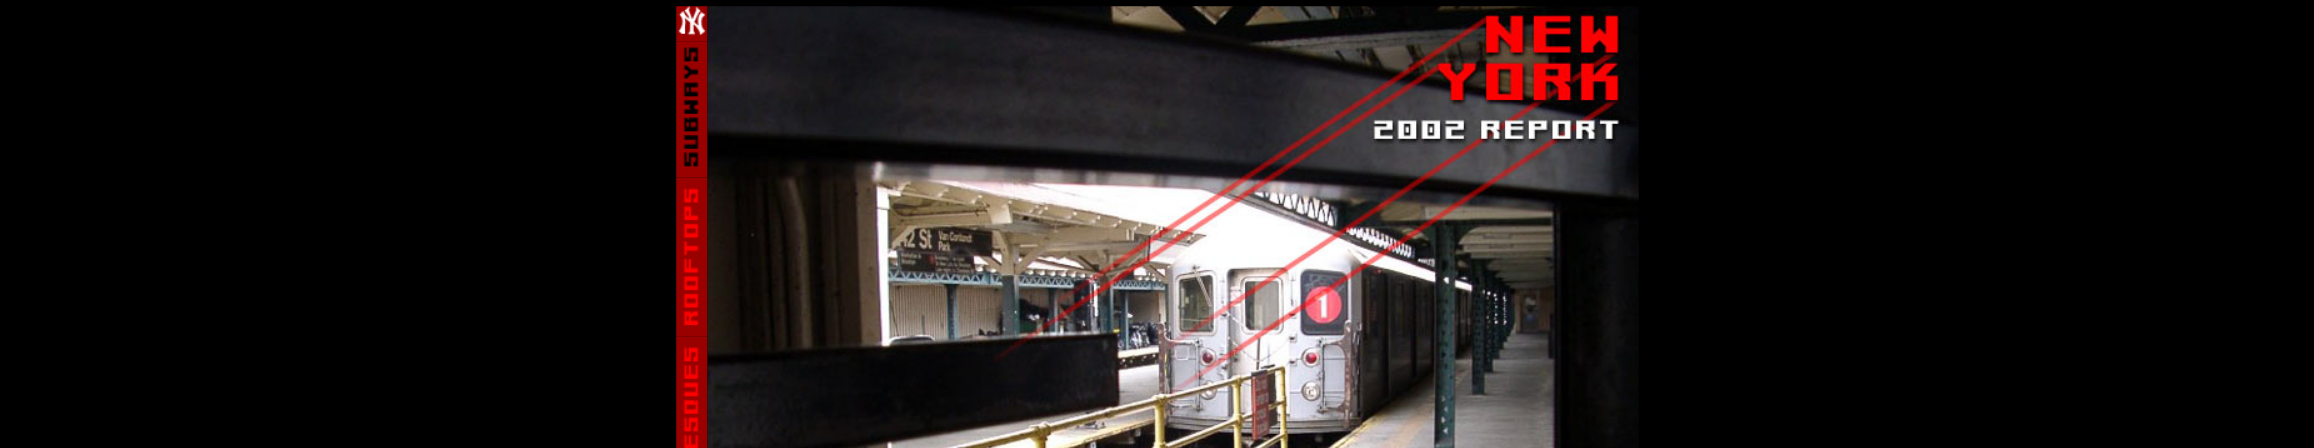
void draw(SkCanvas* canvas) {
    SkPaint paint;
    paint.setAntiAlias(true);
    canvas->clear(0xFF000000);
    canvas->drawImageRect(SkImages::DeferredFromEncodedData(SkData::MakeFromFileName("img1.png")), SkRect::MakeXYWH(676, 6, 32, 36), SkSamplingOptions());
    canvas->drawImageRect(SkImages::DeferredFromEncodedData(SkData::MakeFromFileName("img2.png")), SkRect::MakeXYWH(676, 41, 32, 137), SkSamplingOptions());
    canvas->drawImageRect(SkImages::DeferredFromEncodedData(SkData::MakeFromFileName("img3.png")), SkRect::MakeXYWH(676, 177, 32, 160), SkSamplingOptions());
    canvas->drawImageRect(SkImages::DeferredFromEncodedData(SkData::MakeFromFileName("img4.png")), SkRect::MakeXYWH(676, 336, 32, 112), SkSamplingOptions());
    canvas->drawImageRect(SkImages::DeferredFromEncodedData(SkData::MakeFromFileName("img5.png")), SkRect::MakeXYWH(707, 6, 932, 442), SkSamplingOptions());
}
